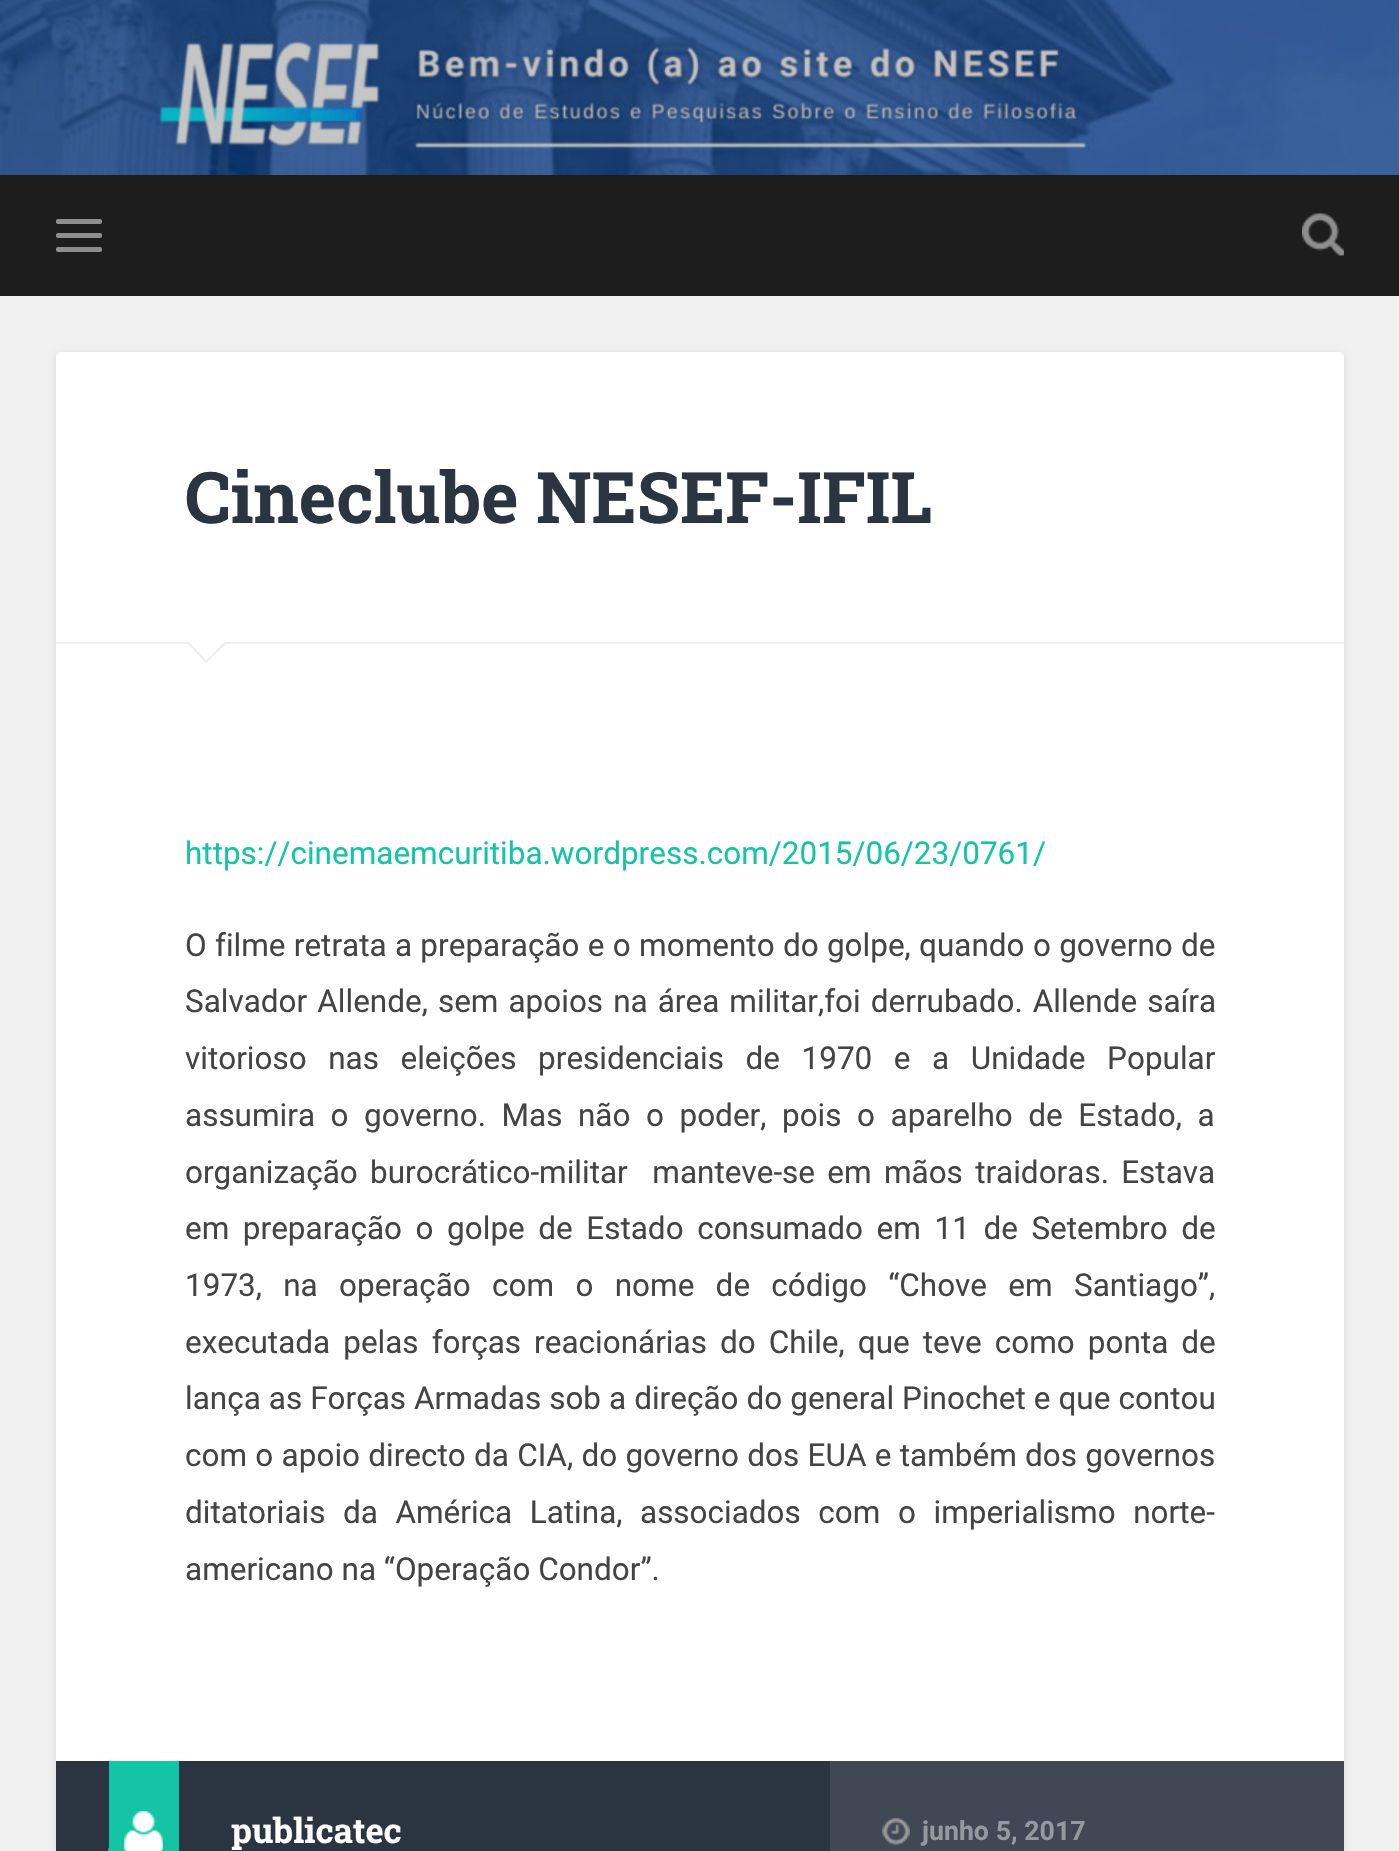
void draw(SkCanvas* canvas) {
    SkPaint paint;
    paint.setAntiAlias(true);
    auto spacedText = [&](const char* s, float x, float y, const SkFont& font, const SkPaint& ink, float letter, float word) {
        std::vector<SkGlyphID> glyphs(font.countText(s, strlen(s), SkTextEncoding::kUTF8));
        std::vector<float> xs(glyphs.size());
        font.textToGlyphs(s, strlen(s), SkTextEncoding::kUTF8, glyphs);
        font.getXPos(glyphs, xs, x);
        float extra = 0;
        for (size_t i = 0; i < glyphs.size(); i++) {
            xs[i] += extra;
            extra += letter + word * (glyphs[i] == font.unicharToGlyph(' '));
        }
        canvas->drawTextBlob(SkTextBlob::MakeFromPosHGlyphs(glyphs, xs, y, font), 0, 0, ink);
    };
    canvas->clear(0xFFF1F1F1);
    canvas->drawImageRect(SkImages::DeferredFromEncodedData(SkData::MakeFromFileName("img1.png")), SkRect::MakeXYWH(0, 0, 1399, 175), SkSamplingOptions());
    paint.setColor(0xFF1D1D1D);
    canvas->drawRect(SkRect::MakeXYWH(0, 175, 1399, 121), paint);
    paint.setColor(0xFF8E8E8E);
    canvas->drawRoundRect(SkRect::MakeXYWH(56, 219, 46, 5), 2, 2, paint);
    canvas->drawRoundRect(SkRect::MakeXYWH(56, 233, 46, 5), 2, 2, paint);
    canvas->drawRoundRect(SkRect::MakeXYWH(56, 247, 46, 5), 2, 2, paint);
    canvas->drawImageRect(SkImages::DeferredFromEncodedData(SkData::MakeFromFileName("img2.png")), SkRect::MakeXYWH(1302, 213, 42, 43), SkSamplingOptions());
    paint.setColor(0x1A000000);
    paint.setMaskFilter(SkMaskFilter::MakeBlur(kNormal_SkBlurStyle, 3.5f));
    canvas->drawRoundRect(SkRect::MakeXYWH(56, 354, 1288, 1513), 5, 5, paint);
    paint.setMaskFilter(nullptr);
    paint.setColor(0xFFFFFFFF);
    canvas->drawRoundRect(SkRect::MakeXYWH(56, 352, 1288, 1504), 5, 5, paint);
    paint.setColor(0xFFEEEEEE);
    canvas->drawRect(SkRect::MakeXYWH(56, 642, 1288, 2), paint);
    SkFont font1(fontMgr->matchFamilyStyle("Roboto Slab", SkFontStyle::Bold()), 70.9f);
    font1.setSubpixel(true);
    paint.setColor(0xFF2B3542);
    canvas->drawString("Cineclube NESEF-IFIL", 185, 523, font1, paint);
    paint.setColor(0xFFEEEEEE);
    canvas->drawPath(SkPathBuilder().moveTo(186, 642).lineTo(228, 642).lineTo(206, 663).close().detach(), paint);
    paint.setColor(0xFFFFFFFF);
    canvas->drawPath(SkPathBuilder().moveTo(187, 640.5f).lineTo(226, 640.5f).lineTo(206.5f, 660).close().detach(), paint);
    SkFont font2(fontMgr->matchFamilyStyle("Roboto", SkFontStyle::Normal()), 31.5f);
    font2.setSubpixel(true);
    paint.setColor(0xFF13C4A5);
    canvas->drawString("https://cinemaemcuritiba.wordpress.com/2015/06/23/0761/", 185, 864, font2, paint);
    paint.setColor(0xFF444444);
    spacedText("O filme retrata a preparação e o momento do golpe, quando o governo de", 185, 956, font2, paint, 0, 0.5f);
    spacedText("Salvador Allende, sem apoios na área militar,foi derrubado. Allende saíra", 185, 1012, font2, paint, 0, 2.25f);
    spacedText("vitorioso nas eleições presidenciais de 1970 e a Unidade Popular", 185, 1069, font2, paint, 0, 13.75f);
    spacedText("assumira o governo. Mas não o poder, pois o aparelho de Estado, a", 185, 1126, font2, paint, 0, 7.75f);
    spacedText("organização burocrático-militar  manteve-se em mãos traidoras. Estava", 185, 1183, font2, paint, 0, 4.5f);
    spacedText("em preparação o golpe de Estado consumado em 11 de Setembro de", 185, 1239, font2, paint, 0, 5.75f);
    spacedText("1973, na operação com o nome de código “Chove em Santiago”,", 185, 1296, font2, paint, 0, 13.5f);
    spacedText("executada pelas forças reacionárias do Chile, que teve como ponta de", 185, 1353, font2, paint, 0, 5.25f);
    spacedText("lança as Forças Armadas sob a direção do general Pinochet e que contou", 185, 1409, font2, paint, 0, 0.2f);
    spacedText("com o apoio directo da CIA, do governo dos EUA e também dos governos", 185, 1466, font2, paint, 0, 0.5f);
    spacedText("ditatoriais da América Latina, associados com o imperialismo norte-", 185, 1523, font2, paint, 0, 9.75f);
    canvas->drawString("americano na “Operação Condor”.", 185, 1580, font2, paint);
    paint.setColor(0xFF2B3542);
    canvas->drawRect(SkRect::MakeXYWH(56, 1761, 774, 90), paint);
    paint.setColor(0xFF13C4A5);
    canvas->drawPath(SkPathBuilder().moveTo(108, 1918).lineTo(108, 1848).lineTo(144, 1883).close().detach(), paint);
    canvas->drawRect(SkRect::MakeXYWH(109, 1761, 70, 90), paint);
    canvas->drawImageRect(SkImages::DeferredFromEncodedData(SkData::MakeFromFileName("img3.png")), SkRect::MakeXYWH(124, 1811, 39, 40), SkSamplingOptions());
    SkFont font3(fontMgr->matchFamilyStyle("Roboto Slab", SkFontStyle::Bold()), 34.5f);
    font3.setSubpixel(true);
    paint.setColor(0xFFFFFFFF);
    canvas->drawString("publicatec", 231, 1843, font3, paint);
    paint.setColor(0xFF3F4854);
    canvas->drawRect(SkRect::MakeXYWH(830, 1761, 514, 90), paint);
    canvas->drawImageRect(SkImages::DeferredFromEncodedData(SkData::MakeFromFileName("img4.png")), SkRect::MakeXYWH(882, 1818, 28, 27), SkSamplingOptions());
    SkFont font4(fontMgr->matchFamilyStyle("Roboto", SkFontStyle::Bold()), 26.75f);
    font4.setSubpixel(true);
    paint.setColor(0xFF9499A0);
    canvas->drawString("junho 5, 2017", 922, 1840, font4, paint);
}
